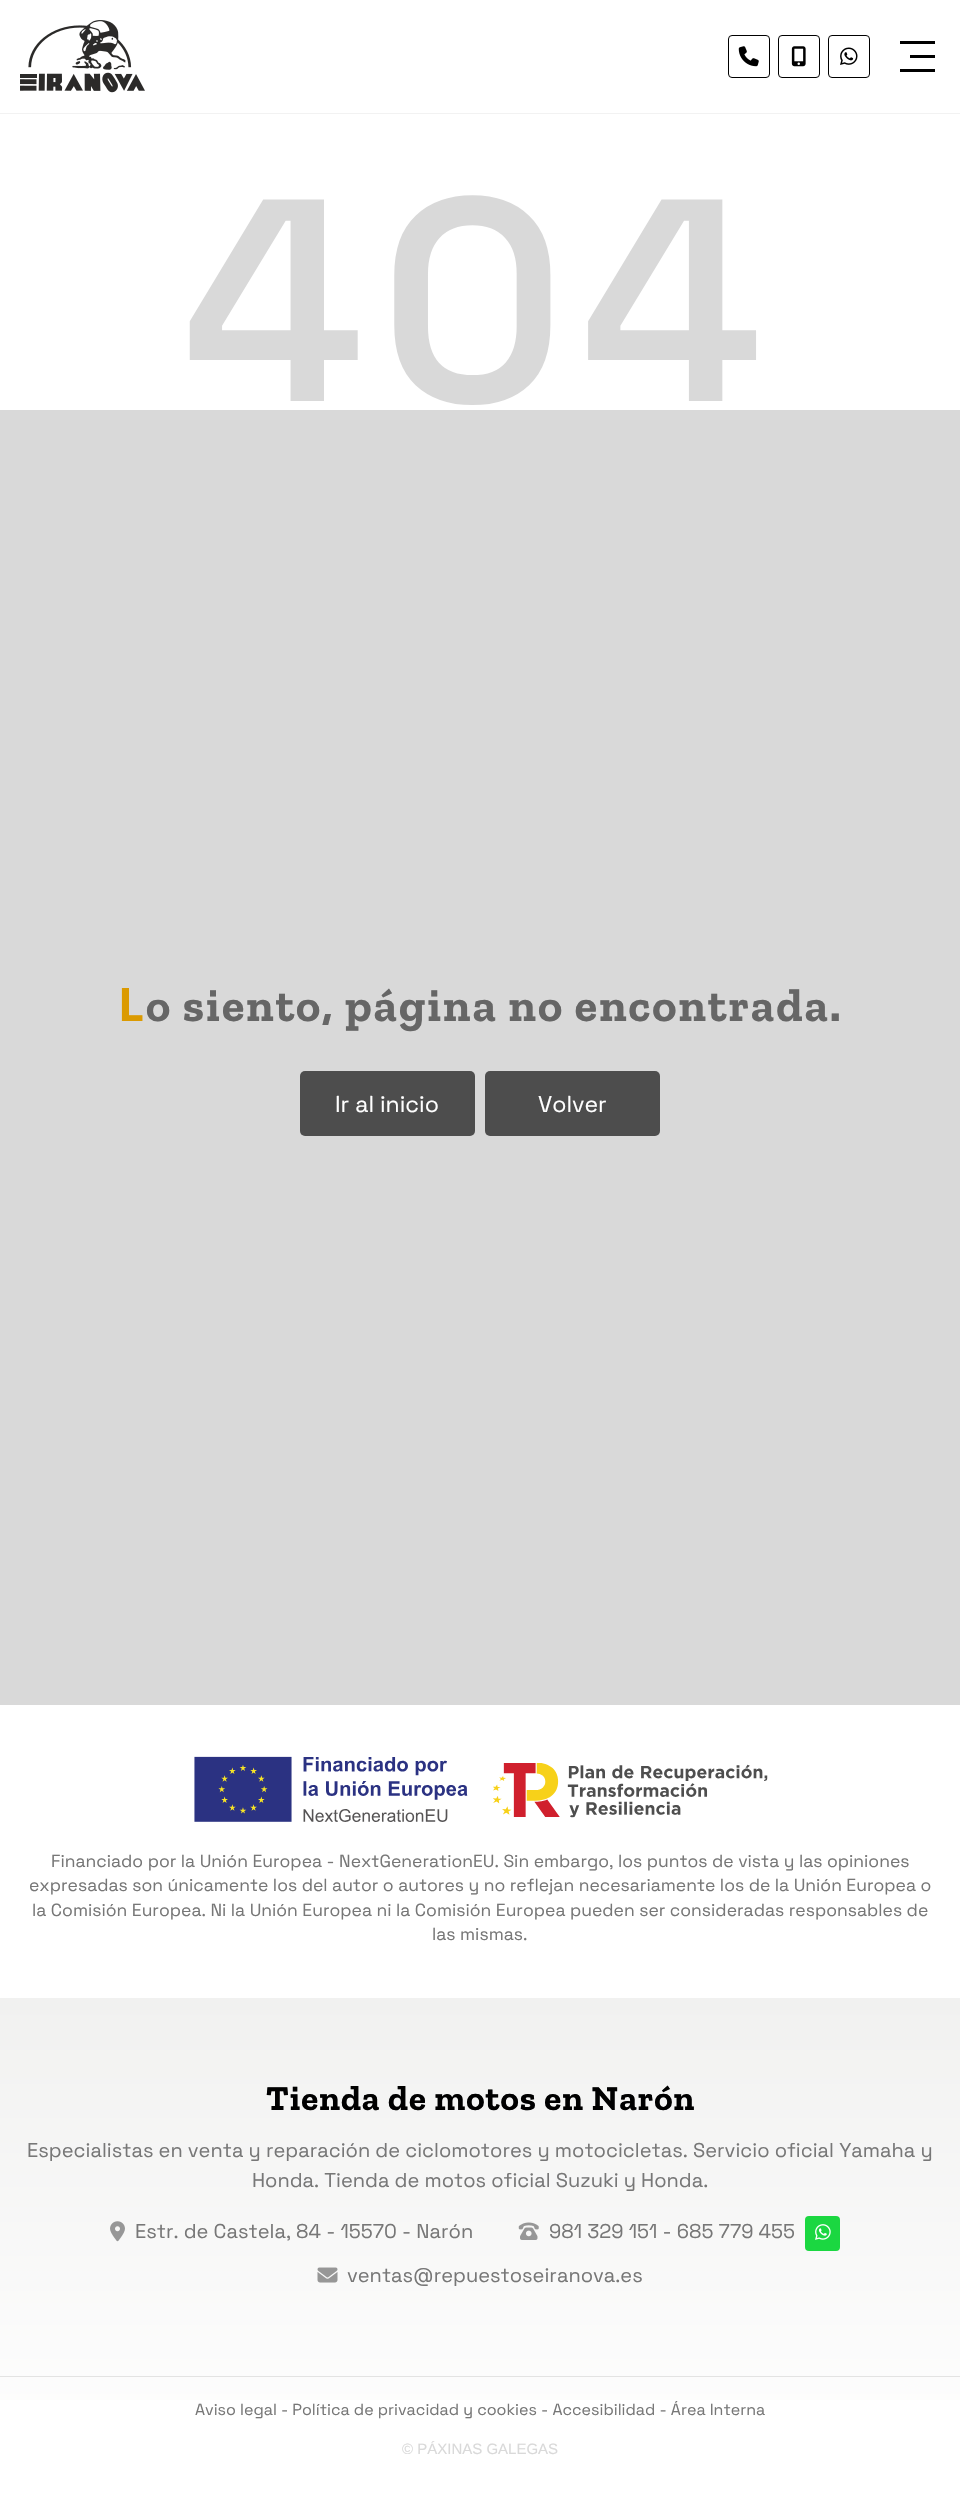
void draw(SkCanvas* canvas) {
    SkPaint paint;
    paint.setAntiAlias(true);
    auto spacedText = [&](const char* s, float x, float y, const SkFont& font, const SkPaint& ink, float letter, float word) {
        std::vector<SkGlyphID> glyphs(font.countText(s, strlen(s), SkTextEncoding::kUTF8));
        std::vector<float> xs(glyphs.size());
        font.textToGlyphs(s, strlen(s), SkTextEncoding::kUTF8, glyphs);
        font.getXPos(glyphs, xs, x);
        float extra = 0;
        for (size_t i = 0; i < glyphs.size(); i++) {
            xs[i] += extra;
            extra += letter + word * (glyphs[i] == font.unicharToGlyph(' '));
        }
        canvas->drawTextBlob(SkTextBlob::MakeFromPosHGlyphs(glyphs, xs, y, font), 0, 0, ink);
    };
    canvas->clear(0xFFFFFFFF);
    canvas->drawImageRect(SkImages::DeferredFromEncodedData(SkData::MakeFromFileName("img1.png")), SkRect::MakeXYWH(20, 20, 125, 73), SkSamplingOptions());
    paint.setStyle(SkPaint::kStroke_Style);
    paint.setStrokeWidth(1);
    paint.setColor(0xFF000000);
    canvas->drawRoundRect(SkRect::MakeXYWH(728.5f, 35.5f, 41, 42), 3.5f, 3.5f, paint);
    canvas->drawImageRect(SkImages::DeferredFromEncodedData(SkData::MakeFromFileName("img2.png")), SkRect::MakeXYWH(738, 46, 21, 21), SkSamplingOptions());
    canvas->drawRoundRect(SkRect::MakeXYWH(778.5f, 35.5f, 41, 42), 3.5f, 3.5f, paint);
    canvas->drawImageRect(SkImages::DeferredFromEncodedData(SkData::MakeFromFileName("img3.png")), SkRect::MakeXYWH(791, 46, 15, 21), SkSamplingOptions());
    canvas->drawRoundRect(SkRect::MakeXYWH(828.5f, 35.5f, 41, 42), 3.5f, 3.5f, paint);
    canvas->drawImageRect(SkImages::DeferredFromEncodedData(SkData::MakeFromFileName("img4.png")), SkRect::MakeXYWH(840, 47, 18, 18), SkSamplingOptions());
    paint.setStyle(SkPaint::kFill_Style);
    canvas->drawRect(SkRect::MakeXYWH(900, 41, 35, 3), paint);
    canvas->drawRect(SkRect::MakeXYWH(910, 55, 25, 3), paint);
    canvas->drawRect(SkRect::MakeXYWH(900, 69, 35, 3), paint);
    paint.setColor(0xFFF2F2F2);
    canvas->drawRect(SkRect::MakeXYWH(0, 113, 960, 1), paint);
    SkFont font1(fontMgr->matchFamilyStyle("Space Grotesk", SkFontStyle(600, SkFontStyle::kNormal_Width, SkFontStyle::kUpright_Slant)), 288);
    font1.setSubpixel(true);
    paint.setColor(0xFFD9D9D9);
    spacedText("404", 182, 401, font1, paint, 15, 0);
    canvas->drawRect(SkRect::MakeXYWH(0, 410, 960, 1295), paint);
    SkFont font2(fontMgr->matchFamilyStyle("Noto Sans", SkFontStyle::Bold()), 46.25f);
    font2.setSubpixel(true);
    paint.setColor(0xFFDB9A01);
    spacedText("L", 118, 1021, font2, paint, 2, 0);
    SkFont font3(fontMgr->matchFamilyStyle("Zilla Slab", SkFontStyle::Bold()), 46.25f);
    font3.setSubpixel(true);
    paint.setColor(0xFF666666);
    spacedText("o siento, página no encontrada.", 146, 1021, font3, paint, 2, 0);
    paint.setColor(0xFF4D4D4D);
    canvas->drawRoundRect(SkRect::MakeXYWH(300, 1071, 175, 65), 5, 5, paint);
    SkFont font4(fontMgr->matchFamilyStyle("Space Grotesk", SkFontStyle::Normal()), 23);
    font4.setSubpixel(true);
    paint.setColor(0xFFFFFFFF);
    canvas->drawString("Ir al inicio", 335, 1112, font4, paint);
    paint.setColor(0xFF4D4D4D);
    canvas->drawRoundRect(SkRect::MakeXYWH(485, 1071, 175, 65), 5, 5, paint);
    paint.setColor(0xFFFFFFFF);
    canvas->drawString("Volver", 538, 1112, font4, paint);
    canvas->drawImageRect(SkImages::DeferredFromEncodedData(SkData::MakeFromFileName("img5.png")), SkRect::MakeXYWH(194, 1756, 274, 66), SkSamplingOptions());
    canvas->drawImageRect(SkImages::DeferredFromEncodedData(SkData::MakeFromFileName("img6.png")), SkRect::MakeXYWH(493, 1763, 275, 55), SkSamplingOptions());
    SkFont font5(fontMgr->matchFamilyStyle("Space Grotesk", SkFontStyle::Normal()), 17.5f);
    font5.setSubpixel(true);
    paint.setColor(0xFF777777);
    canvas->drawString("Financiado por la Unión Europea - NextGenerationEU. Sin embargo, los puntos de vista y las opiniones", 51, 1867, font5, paint);
    canvas->drawString("expresadas son únicamente los del autor o autores y no reflejan necesariamente los de la Unión Europea o", 29, 1891, font5, paint);
    canvas->drawString("la Comisión Europea. Ni la Unión Europea ni la Comisión Europea pueden ser consideradas responsables de", 32, 1916, font5, paint);
    canvas->drawString("las mismas.", 432, 1940, font5, paint);
    {
        const SkColor colors[] = {0xFFF1F1F0, 0xFFFFFFFF};
        const float stops[] = {0, 1};
        const SkPoint ends[] = {{480, 1998}, {480, 2480}};
        paint.setShader(SkGradientShader::MakeLinear(ends, colors, stops, 2, SkTileMode::kClamp));
        paint.setAlpha(255);
    }
    canvas->drawRect(SkRect::MakeXYWH(0, 1998, 960, 402), paint);
    SkFont font6(fontMgr->matchFamilyStyle("Zilla Slab", SkFontStyle::Bold()), 35);
    font6.setSubpixel(true);
    paint.setShader(nullptr);
    paint.setColor(0xFF000000);
    spacedText("Tienda de motos en Narón", 266, 2110, font6, paint, 1, 0);
    SkFont font7(fontMgr->matchFamilyStyle("Space Grotesk", SkFontStyle::Normal()), 20);
    font7.setSubpixel(true);
    paint.setColor(0xFF777777);
    canvas->drawString("Especialistas en venta y reparación de ciclomotores y motocicletas. Servicio oficial Yamaha y", 27, 2157, font7, paint);
    canvas->drawString("Honda. Tienda de motos oficial Suzuki y Honda.", 252, 2187, font7, paint);
    canvas->drawImageRect(SkImages::DeferredFromEncodedData(SkData::MakeFromFileName("img7.png")), SkRect::MakeXYWH(110, 2221, 15, 21), SkSamplingOptions());
    canvas->drawString("Estr. de Castela, 84 - 15570 - Narón", 135, 2238, font7, paint);
    canvas->drawImageRect(SkImages::DeferredFromEncodedData(SkData::MakeFromFileName("img8.png")), SkRect::MakeXYWH(518, 2222, 21, 18), SkSamplingOptions());
    canvas->drawString("981 329 151 - 685 779 455", 549, 2238, font7, paint);
    paint.setColor(0xFF1BD741);
    canvas->drawRoundRect(SkRect::MakeXYWH(805, 2216, 35, 35), 4, 4, paint);
    canvas->drawImageRect(SkImages::DeferredFromEncodedData(SkData::MakeFromFileName("img9.png")), SkRect::MakeXYWH(815, 2224, 16, 16), SkSamplingOptions());
    canvas->drawImageRect(SkImages::DeferredFromEncodedData(SkData::MakeFromFileName("img10.png")), SkRect::MakeXYWH(317, 2267, 21, 16), SkSamplingOptions());
    paint.setColor(0xFF777777);
    canvas->drawString("ventas@repuestoseiranova.es", 347, 2282, font7, paint);
    paint.setColor(0xFFE3E3E3);
    canvas->drawRect(SkRect::MakeXYWH(0, 2376, 960, 1), paint);
    SkFont font8(fontMgr->matchFamilyStyle("Space Grotesk", SkFontStyle::Normal()), 16);
    font8.setSubpixel(true);
    paint.setColor(0xFF777777);
    canvas->drawString("Aviso legal - Política de privacidad y cookies - Accesibilidad - Área Interna", 195, 2415, font8, paint);
    SkFont font9(fontMgr->matchFamilyStyle("Liberation Sans", SkFontStyle::Normal()), 15);
    font9.setSubpixel(true);
    paint.setColor(0xFFD9D9D9);
    canvas->drawString("© PÁXINAS GALEGAS", 402, 2454, font9, paint);
}
